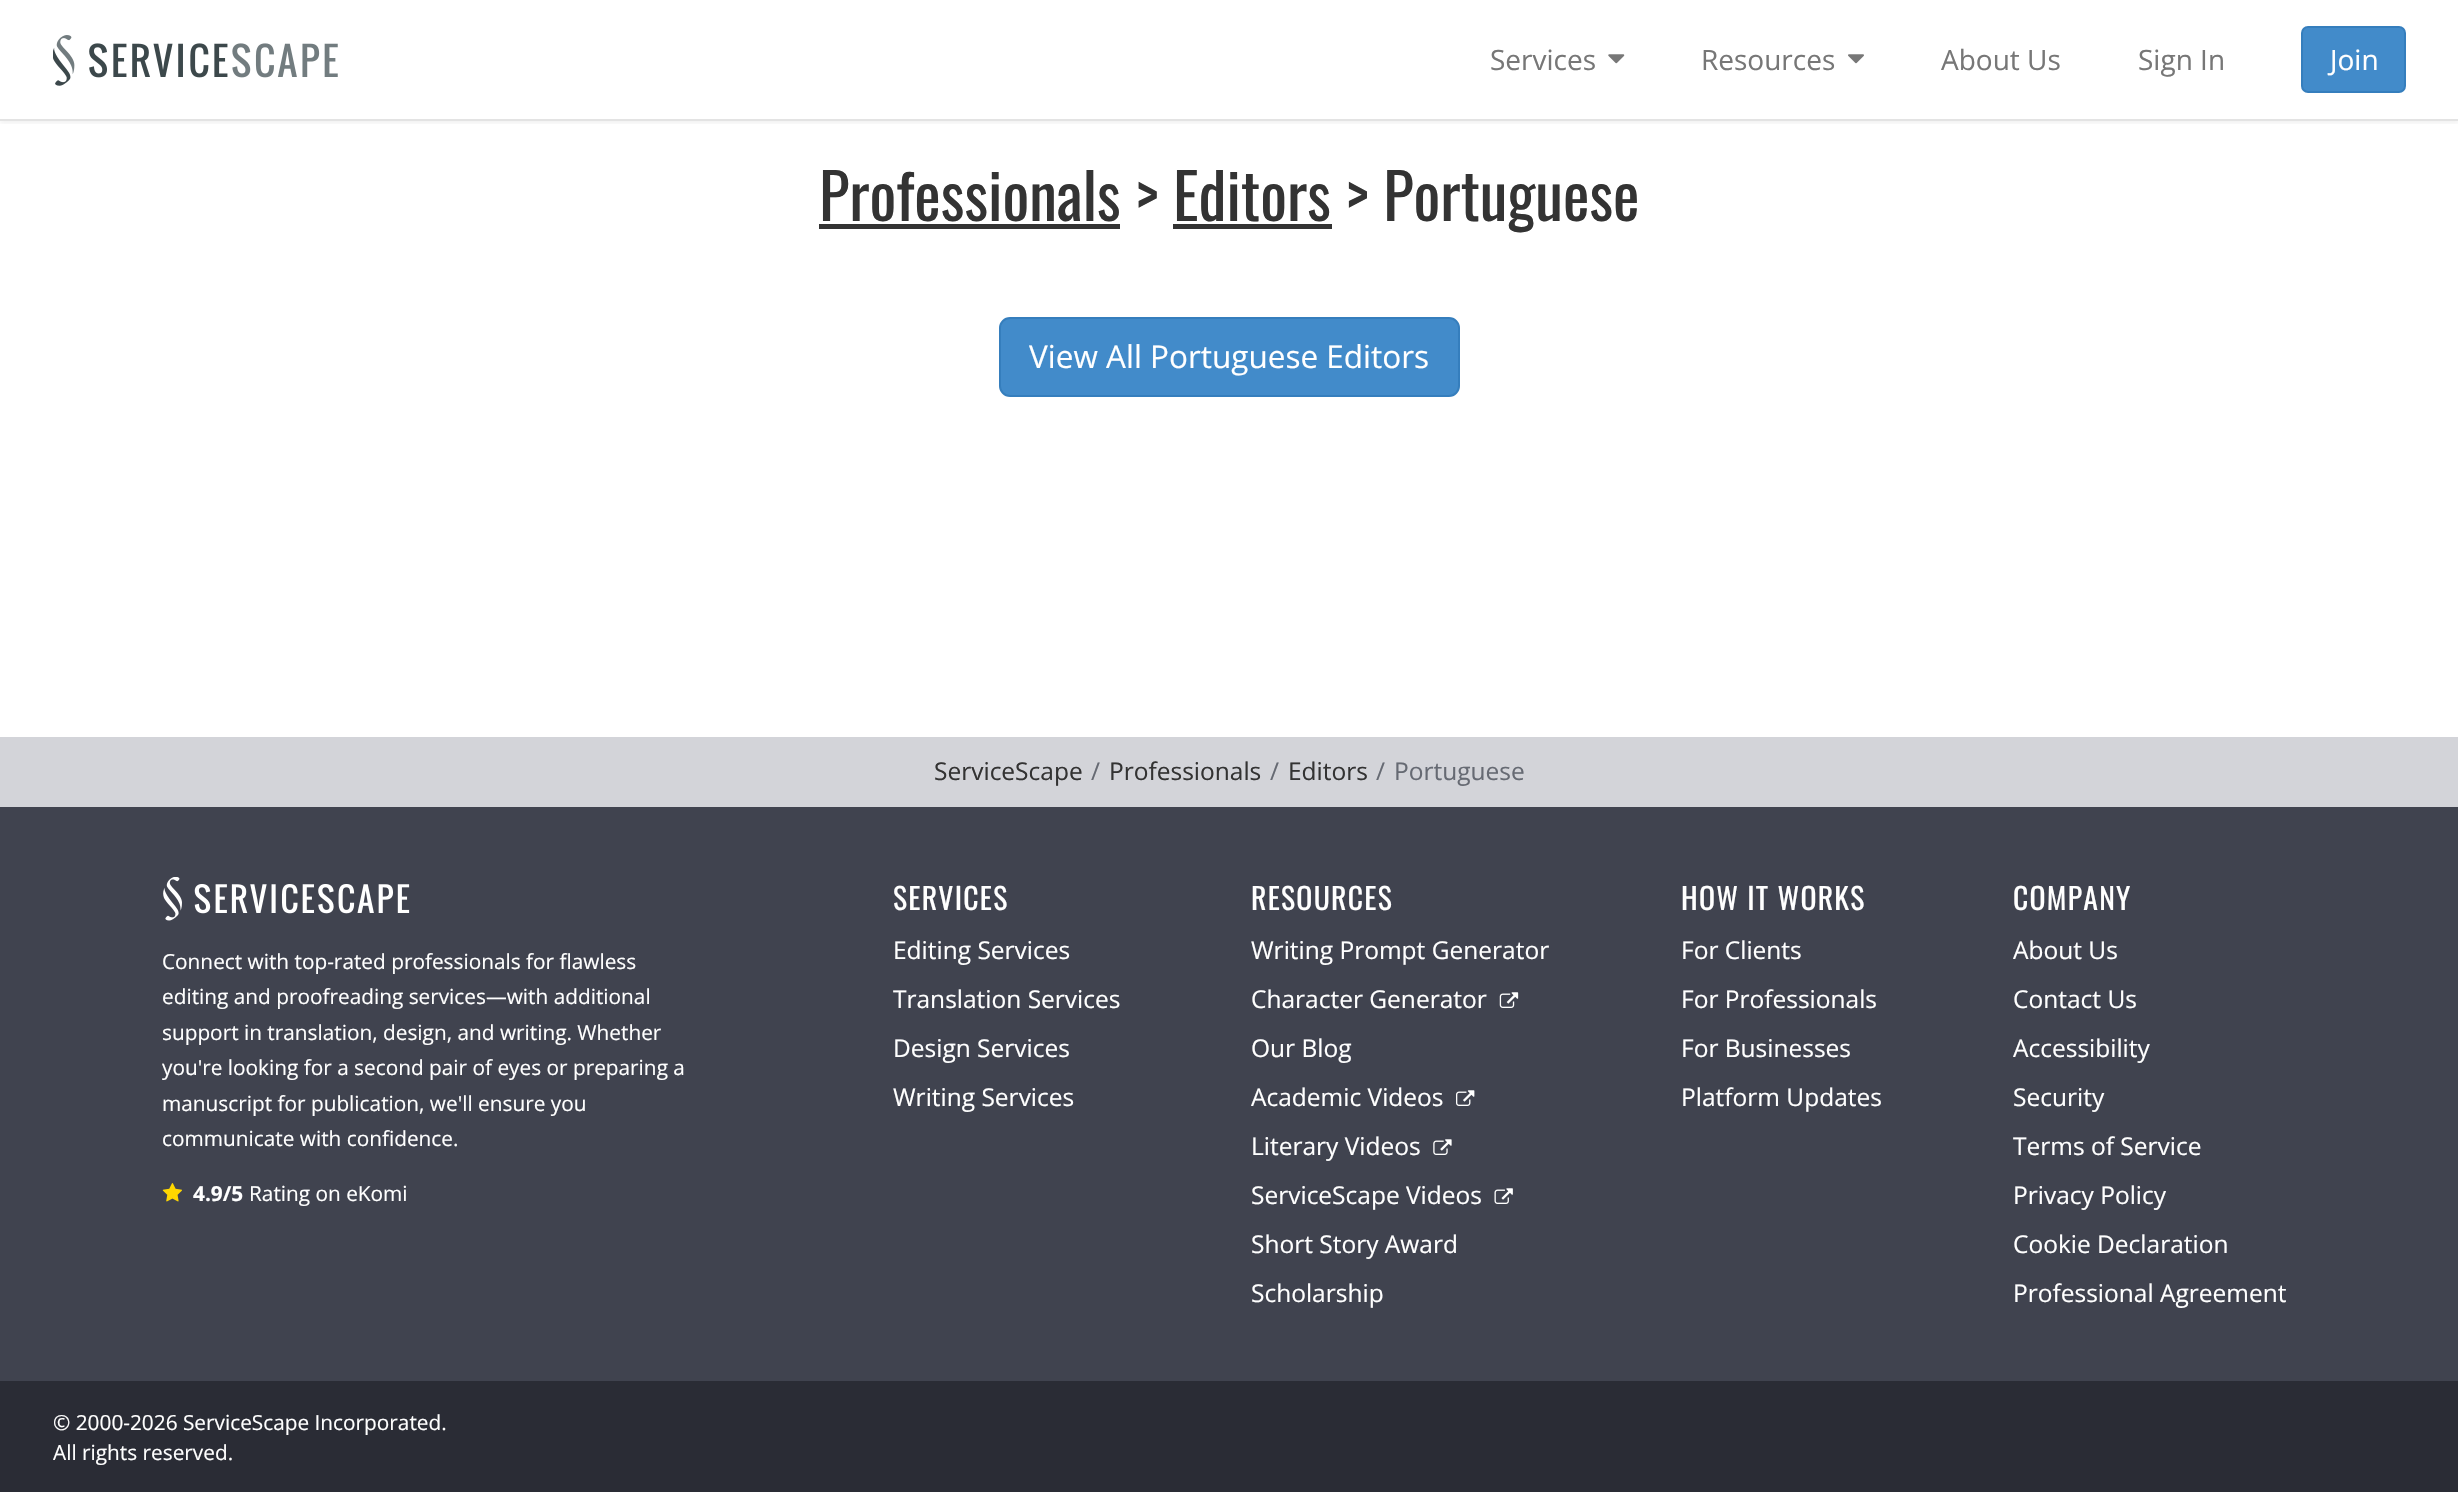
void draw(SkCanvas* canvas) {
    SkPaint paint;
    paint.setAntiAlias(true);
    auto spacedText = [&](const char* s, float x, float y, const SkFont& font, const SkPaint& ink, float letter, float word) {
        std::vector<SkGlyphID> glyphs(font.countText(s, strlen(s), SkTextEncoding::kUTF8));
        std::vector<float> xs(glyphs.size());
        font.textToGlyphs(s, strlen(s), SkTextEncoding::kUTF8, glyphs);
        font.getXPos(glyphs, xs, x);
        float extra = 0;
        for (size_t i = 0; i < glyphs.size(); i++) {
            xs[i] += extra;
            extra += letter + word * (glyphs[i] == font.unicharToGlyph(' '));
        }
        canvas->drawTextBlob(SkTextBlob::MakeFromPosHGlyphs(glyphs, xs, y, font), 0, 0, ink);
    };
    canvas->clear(0xFFFFFFFF);
    canvas->save();
    canvas->clipRect(SkRect::MakeXYWH(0, 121, 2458, 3));
    paint.setColor(0x0F000000);
    paint.setMaskFilter(SkMaskFilter::MakeBlur(kNormal_SkBlurStyle, 2.5f));
    canvas->drawRect(SkRect::MakeXYWH(0, 4, 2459, 119), paint);
    paint.setMaskFilter(nullptr);
    canvas->restore();
    paint.setColor(0xFFE3E3E3);
    canvas->drawPath(SkPathBuilder().moveTo(0, 119).lineTo(0, 121).lineTo(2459, 121).lineTo(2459, 2).lineTo(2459, 119).close().detach(), paint);
    canvas->drawImageRect(SkImages::DeferredFromEncodedData(SkData::MakeFromFileName("img1.png")), SkRect::MakeXYWH(53, 35, 285, 51), SkSamplingOptions());
    SkFont font1(fontMgr->matchFamilyStyle("Open Sans", SkFontStyle::Normal()), 28);
    font1.setSubpixel(true);
    paint.setColor(0xFF777777);
    canvas->drawString("Services", 1490, 70, font1, paint);
    canvas->drawImageRect(SkImages::DeferredFromEncodedData(SkData::MakeFromFileName("img2.png")), SkRect::MakeXYWH(1608, 54, 17, 10), SkSamplingOptions());
    canvas->drawString("Resources", 1701, 70, font1, paint);
    canvas->drawImageRect(SkImages::DeferredFromEncodedData(SkData::MakeFromFileName("img3.png")), SkRect::MakeXYWH(1848, 54, 16, 10), SkSamplingOptions());
    canvas->drawString("About Us", 1941, 70, font1, paint);
    canvas->drawString("Sign In", 2138, 70, font1, paint);
    paint.setColor(0xFF428BCA);
    canvas->drawRoundRect(SkRect::MakeXYWH(2302, 27, 103, 65), 6, 6, paint);
    paint.setStyle(SkPaint::kStroke_Style);
    paint.setStrokeWidth(2);
    paint.setColor(0xFF357EBD);
    canvas->drawRoundRect(SkRect::MakeXYWH(2302, 27, 103, 65), 6, 6, paint);
    paint.setStyle(SkPaint::kFill_Style);
    paint.setColor(0xFFFFFFFF);
    canvas->drawString("Join", 2330, 70, font1, paint);
    paint.setColor(0xFF333333);
    canvas->drawRect(SkRect::MakeXYWH(819, 224, 301, 5), paint);
    SkFont font2(fontMgr->matchFamilyStyle("Oswald", SkFontStyle::Normal()), 63);
    font2.setSubpixel(true);
    canvas->drawString("Professionals > Editors > Portuguese", 819, 221, font2, paint);
    canvas->drawRect(SkRect::MakeXYWH(1173, 224, 159, 5), paint);
    paint.setColor(0xFF428BCA);
    canvas->drawRoundRect(SkRect::MakeXYWH(1000, 318, 459, 78), 10, 10, paint);
    paint.setStyle(SkPaint::kStroke_Style);
    paint.setColor(0xFF357EBD);
    canvas->drawRoundRect(SkRect::MakeXYWH(1000, 318, 459, 78), 10, 10, paint);
    SkFont font3(fontMgr->matchFamilyStyle("Open Sans", SkFontStyle::Normal()), 31.5f);
    font3.setSubpixel(true);
    paint.setStyle(SkPaint::kFill_Style);
    paint.setColor(0xFFFFFFFF);
    canvas->drawString("View All Portuguese Editors", 1029, 368, font3, paint);
    paint.setColor(0xFF40434F);
    canvas->drawRect(SkRect::MakeXYWH(0, 807, 2458, 574), paint);
    paint.setColor(0xFFD3D4D9);
    canvas->drawRect(SkRect::MakeXYWH(0, 737, 2458, 70), paint);
    SkFont font4(fontMgr->matchFamilyStyle("Open Sans", SkFontStyle::Normal()), 24.5f);
    font4.setSubpixel(true);
    paint.setColor(0xFF333333);
    canvas->drawString("ServiceScape", 934, 780, font4, paint);
    paint.setColor(0xFF666A73);
    canvas->drawString("/", 1091, 780, font4, paint);
    paint.setColor(0xFF333333);
    canvas->drawString("Professionals", 1109, 780, font4, paint);
    paint.setColor(0xFF666A73);
    canvas->drawString("/", 1270, 780, font4, paint);
    paint.setColor(0xFF333333);
    canvas->drawString("Editors", 1288, 780, font4, paint);
    paint.setColor(0xFF666A73);
    canvas->drawString("/", 1376, 780, font4, paint);
    canvas->drawString("Portuguese", 1394, 780, font4, paint);
    canvas->drawImageRect(SkImages::DeferredFromEncodedData(SkData::MakeFromFileName("img4.png")), SkRect::MakeXYWH(163, 877, 247, 44), SkSamplingOptions());
    SkFont font5(fontMgr->matchFamilyStyle("Open Sans", SkFontStyle::Normal()), 20.8f);
    font5.setSubpixel(true);
    paint.setColor(0xFFFFFFFF);
    canvas->drawString("Connect with top-rated professionals for flawless", 162, 969, font5, paint);
    canvas->drawString("editing and proofreading services—with additional", 162, 1004, font5, paint);
    canvas->drawString("support in translation, design, and writing. Whether", 162, 1040, font5, paint);
    canvas->drawString("you're looking for a second pair of eyes or preparing a", 162, 1075, font5, paint);
    canvas->drawString("manuscript for publication, we'll ensure you", 162, 1111, font5, paint);
    canvas->drawString("communicate with confidence.", 162, 1146, font5, paint);
    canvas->drawImageRect(SkImages::DeferredFromEncodedData(SkData::MakeFromFileName("img5.png")), SkRect::MakeXYWH(162, 1183, 20, 19), SkSamplingOptions());
    SkFont font6(fontMgr->matchFamilyStyle("Open Sans", SkFontStyle::Bold()), 20.8f);
    font6.setSubpixel(true);
    canvas->drawString("4.9/5", 193, 1201, font6, paint);
    canvas->drawString("Rating on eKomi", 249, 1201, font5, paint);
    SkFont font7(fontMgr->matchFamilyStyle("Oswald", SkFontStyle::Normal()), 29.75f);
    font7.setSubpixel(true);
    spacedText("SERVICES", 893, 910, font7, paint, 1.25f, 0);
    canvas->drawString("Editing Services", 893, 959, font4, paint);
    canvas->drawString("Translation Services", 893, 1008, font4, paint);
    canvas->drawString("Design Services", 893, 1057, font4, paint);
    canvas->drawString("Writing Services", 893, 1106, font4, paint);
    spacedText("RESOURCES", 1251, 910, font7, paint, 1.25f, 0);
    canvas->drawString("Writing Prompt Generator", 1251, 959, font4, paint);
    canvas->drawString("Character Generator", 1251, 1008, font4, paint);
    canvas->drawImageRect(SkImages::DeferredFromEncodedData(SkData::MakeFromFileName("img6.png")), SkRect::MakeXYWH(1499, 992, 20, 16), SkSamplingOptions());
    canvas->drawString("Our Blog", 1251, 1057, font4, paint);
    canvas->drawString("Academic Videos", 1251, 1106, font4, paint);
    canvas->drawImageRect(SkImages::DeferredFromEncodedData(SkData::MakeFromFileName("img7.png")), SkRect::MakeXYWH(1456, 1090, 19, 16), SkSamplingOptions());
    canvas->drawString("Literary Videos", 1251, 1155, font4, paint);
    canvas->drawImageRect(SkImages::DeferredFromEncodedData(SkData::MakeFromFileName("img8.png")), SkRect::MakeXYWH(1433, 1139, 19, 16), SkSamplingOptions());
    canvas->drawString("ServiceScape Videos", 1251, 1204, font4, paint);
    canvas->drawImageRect(SkImages::DeferredFromEncodedData(SkData::MakeFromFileName("img9.png")), SkRect::MakeXYWH(1494, 1188, 19, 16), SkSamplingOptions());
    canvas->drawString("Short Story Award", 1251, 1253, font4, paint);
    canvas->drawString("Scholarship", 1251, 1302, font4, paint);
    spacedText("HOW IT WORKS", 1681, 910, font7, paint, 1.25f, 0);
    canvas->drawString("For Clients", 1681, 959, font4, paint);
    canvas->drawString("For Professionals", 1681, 1008, font4, paint);
    canvas->drawString("For Businesses", 1681, 1057, font4, paint);
    canvas->drawString("Platform Updates", 1681, 1106, font4, paint);
    spacedText("COMPANY", 2013, 910, font7, paint, 1.25f, 0);
    canvas->drawString("About Us", 2013, 959, font4, paint);
    canvas->drawString("Contact Us", 2013, 1008, font4, paint);
    canvas->drawString("Accessibility", 2013, 1057, font4, paint);
    canvas->drawString("Security", 2013, 1106, font4, paint);
    canvas->drawString("Terms of Service", 2013, 1155, font4, paint);
    canvas->drawString("Privacy Policy", 2013, 1204, font4, paint);
    canvas->drawString("Cookie Declaration", 2013, 1253, font4, paint);
    canvas->drawString("Professional Agreement", 2013, 1302, font4, paint);
    paint.setColor(0xFF2A2C35);
    canvas->drawRect(SkRect::MakeXYWH(0, 1381, 2458, 111), paint);
    paint.setColor(0xFFFFFFFF);
    canvas->drawString("© 2000-2026 ServiceScape Incorporated.", 53, 1430, font5, paint);
    canvas->drawString("All rights reserved.", 53, 1460, font5, paint);
}
